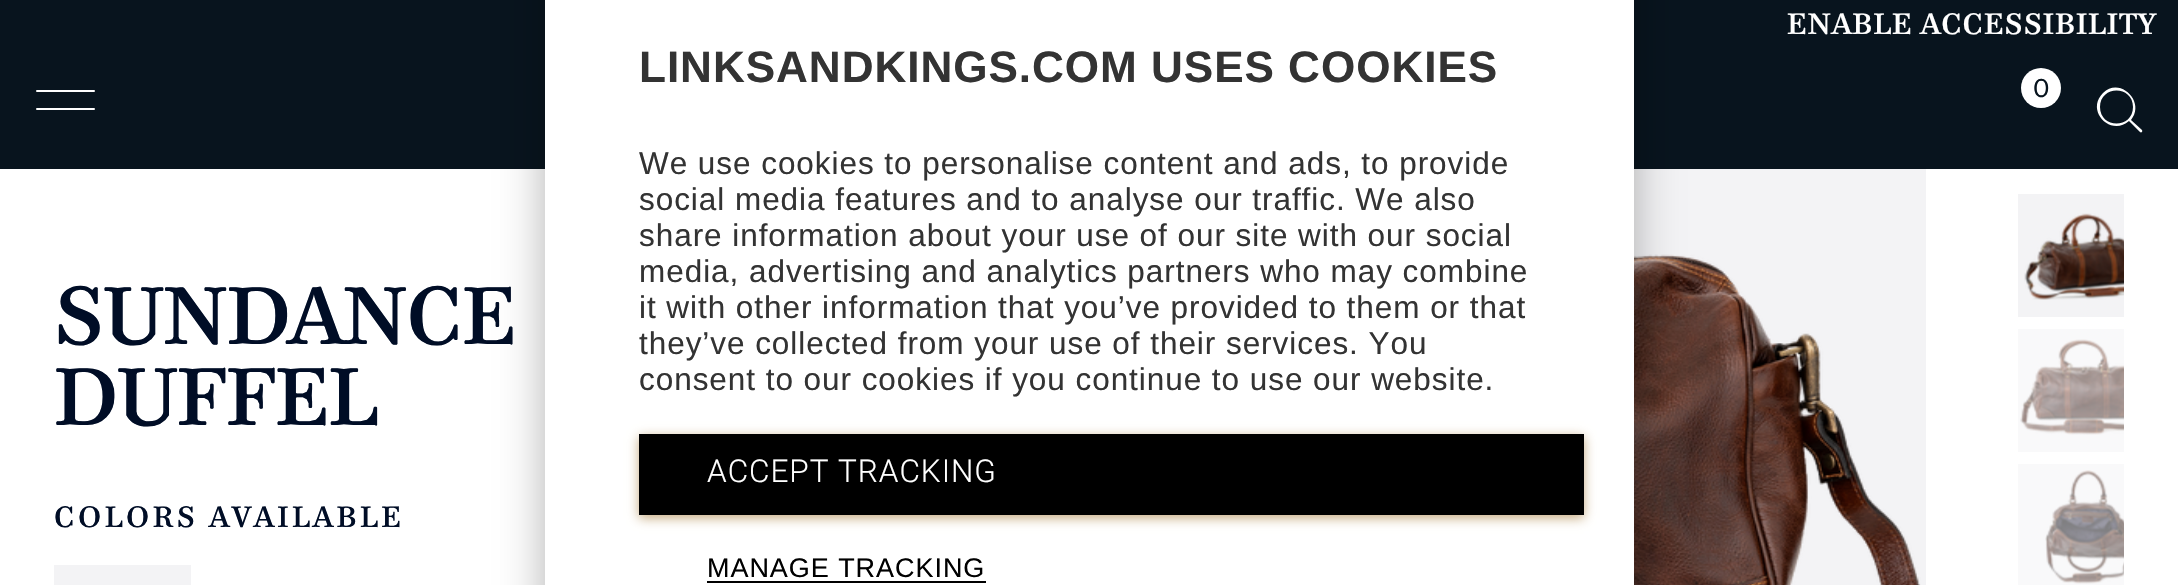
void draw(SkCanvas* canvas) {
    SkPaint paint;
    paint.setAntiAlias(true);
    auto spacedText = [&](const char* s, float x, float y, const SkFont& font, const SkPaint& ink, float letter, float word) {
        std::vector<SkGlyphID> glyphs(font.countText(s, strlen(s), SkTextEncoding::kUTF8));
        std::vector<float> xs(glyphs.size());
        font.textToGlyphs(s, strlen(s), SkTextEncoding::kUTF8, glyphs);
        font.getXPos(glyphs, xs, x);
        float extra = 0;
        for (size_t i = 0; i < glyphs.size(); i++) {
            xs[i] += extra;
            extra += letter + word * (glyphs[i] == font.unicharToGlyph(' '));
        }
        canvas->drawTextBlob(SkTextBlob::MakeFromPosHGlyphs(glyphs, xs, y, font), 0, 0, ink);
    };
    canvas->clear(0xFFFFFFFF);
    paint.setColor(0xFF08141E);
    canvas->drawRect(SkRect::MakeXYWH(0, 0, 2178, 169), paint);
    SkFont font1(fontMgr->matchFamilyStyle("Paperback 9", SkFontStyle::Normal()), 29.25f);
    font1.setSubpixel(true);
    paint.setColor(0xFFFFFFFF);
    spacedText("ENABLE ACCESSIBILITY", 1787, 34, font1, paint, 0.95f, 0);
    canvas->drawCircle(2041, 88, 20, paint);
    SkFont font2(fontMgr->matchFamilyStyle("Proxima Nova", SkFontStyle::Normal()), 27);
    font2.setSubpixel(true);
    paint.setColor(0xFF08141E);
    spacedText("0", 2033, 97, font2, paint, 0.95f, 0);
    paint.setColor(0xFFFFFFFF);
    canvas->drawPath(SkPathBuilder().moveTo(2142, 130).lineTo(2131, 120).cubicTo(2146, 102, 2120, 76, 2103, 93).cubicTo(2085, 111, 2111, 137, 2129, 121).lineTo(2140, 132).cubicTo(2141, 133, 2143, 132, 2142, 130).close().moveTo(2100, 107).cubicTo(2100, 85, 2133, 85, 2133, 107).cubicTo(2133, 129, 2100, 129, 2100, 107).close().detach(), paint);
    canvas->drawRoundRect(SkRect::MakeXYWH(36, 90, 59, 2), 1, 1, paint);
    canvas->drawRoundRect(SkRect::MakeXYWH(36, 108, 59, 2), 1, 1, paint);
    SkFont font3(fontMgr->matchFamilyStyle("Paperback 9", SkFontStyle::Normal()), 81);
    font3.setSubpixel(true);
    paint.setColor(0xFF000D26);
    spacedText("SUNDANCE", 54, 344, font3, paint, -1, 0);
    spacedText("DUFFEL", 54, 425, font3, paint, -1, 0);
    spacedText("COLORS AVAILABLE", 54, 527, font1, paint, 3.6f, 0);
    paint.setColor(0xFFF3F3F5);
    canvas->drawRect(SkRect::MakeXYWH(54, 565, 137, 20), paint);
    canvas->drawRect(SkRect::MakeXYWH(1634, 169, 292, 416), paint);
    canvas->drawImageRect(SkImages::DeferredFromEncodedData(SkData::MakeFromFileName("img1.png")), SkRect::MakeXYWH(1634, 254, 287, 331), SkSamplingOptions());
    canvas->drawRect(SkRect::MakeXYWH(2018, 194, 106, 123), paint);
    canvas->drawImageRect(SkImages::DeferredFromEncodedData(SkData::MakeFromFileName("img2.png")), SkRect::MakeXYWH(2024, 213, 100, 87), SkSamplingOptions());
    paint.setColor(0xFFF9F9FA);
    canvas->drawRect(SkRect::MakeXYWH(2018, 329, 106, 123), paint);
    canvas->drawImageRect(SkImages::DeferredFromEncodedData(SkData::MakeFromFileName("img3.png")), SkRect::MakeXYWH(2020, 339, 104, 96), SkSamplingOptions());
    canvas->drawRect(SkRect::MakeXYWH(2018, 464, 106, 121), paint);
    canvas->drawImageRect(SkImages::DeferredFromEncodedData(SkData::MakeFromFileName("img4.png")), SkRect::MakeXYWH(2045, 470, 79, 114), SkSamplingOptions());
    paint.setColor(0x4D000000);
    paint.setMaskFilter(SkMaskFilter::MakeBlur(kNormal_SkBlurStyle, 22.5f));
    canvas->drawRoundRect(SkRect::MakeXYWH(545, -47, 1089, 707), 7, 7, paint);
    paint.setMaskFilter(nullptr);
    paint.setColor(0xFFFFFFFF);
    canvas->drawRect(SkRect::MakeXYWH(545, 0, 1089, 585), paint);
    SkFont font4(fontMgr->matchFamilyStyle("Liberation Sans", SkFontStyle::Bold()), 44.1f);
    font4.setSubpixel(true);
    paint.setColor(0xFF333333);
    spacedText("LINKSANDKINGS.COM USES COOKIES", 639, 82, font4, paint, 0.95f, 0);
    SkFont font5(fontMgr->matchFamilyStyle("Liberation Sans", SkFontStyle::Normal()), 31.5f);
    font5.setSubpixel(true);
    spacedText("We use cookies to personalise content and ads, to provide", 639, 174, font5, paint, 0.95f, 0);
    spacedText("social media features and to analyse our traffic. We also", 639, 210, font5, paint, 0.95f, 0);
    spacedText("share information about your use of our site with our social", 639, 246, font5, paint, 0.95f, 0);
    spacedText("media, advertising and analytics partners who may combine", 639, 282, font5, paint, 0.95f, 0);
    spacedText("it with other information that you’ve provided to them or that", 639, 318, font5, paint, 0.95f, 0);
    spacedText("they’ve collected from your use of their services. You", 639, 354, font5, paint, 0.95f, 0);
    spacedText("consent to our cookies if you continue to use our website.", 639, 390, font5, paint, 0.95f, 0);
    paint.setColor(0x808B5300);
    paint.setMaskFilter(SkMaskFilter::MakeBlur(kNormal_SkBlurStyle, 5.5f));
    canvas->drawRect(SkRect::MakeXYWH(639, 437, 945, 81), paint);
    paint.setMaskFilter(nullptr);
    paint.setColor(0xFF000000);
    canvas->drawRect(SkRect::MakeXYWH(639, 434, 945, 81), paint);
    SkFont font6(fontMgr->matchFamilyStyle("Roboto", SkFontStyle(300, SkFontStyle::kNormal_Width, SkFontStyle::kUpright_Slant)), 31.5f);
    font6.setSubpixel(true);
    paint.setColor(0xFFFFFFFF);
    spacedText("ACCEPT TRACKING", 707, 482, font6, paint, 0.95f, 0);
    SkFont font7(fontMgr->matchFamilyStyle("Liberation Sans", SkFontStyle::Normal()), 27);
    font7.setSubpixel(true);
    paint.setColor(0xFF000000);
    spacedText("MANAGE TRACKING", 707, 577, font7, paint, 0.95f, 0);
    canvas->drawRect(SkRect::MakeXYWH(707, 581, 279, 2), paint);
}
